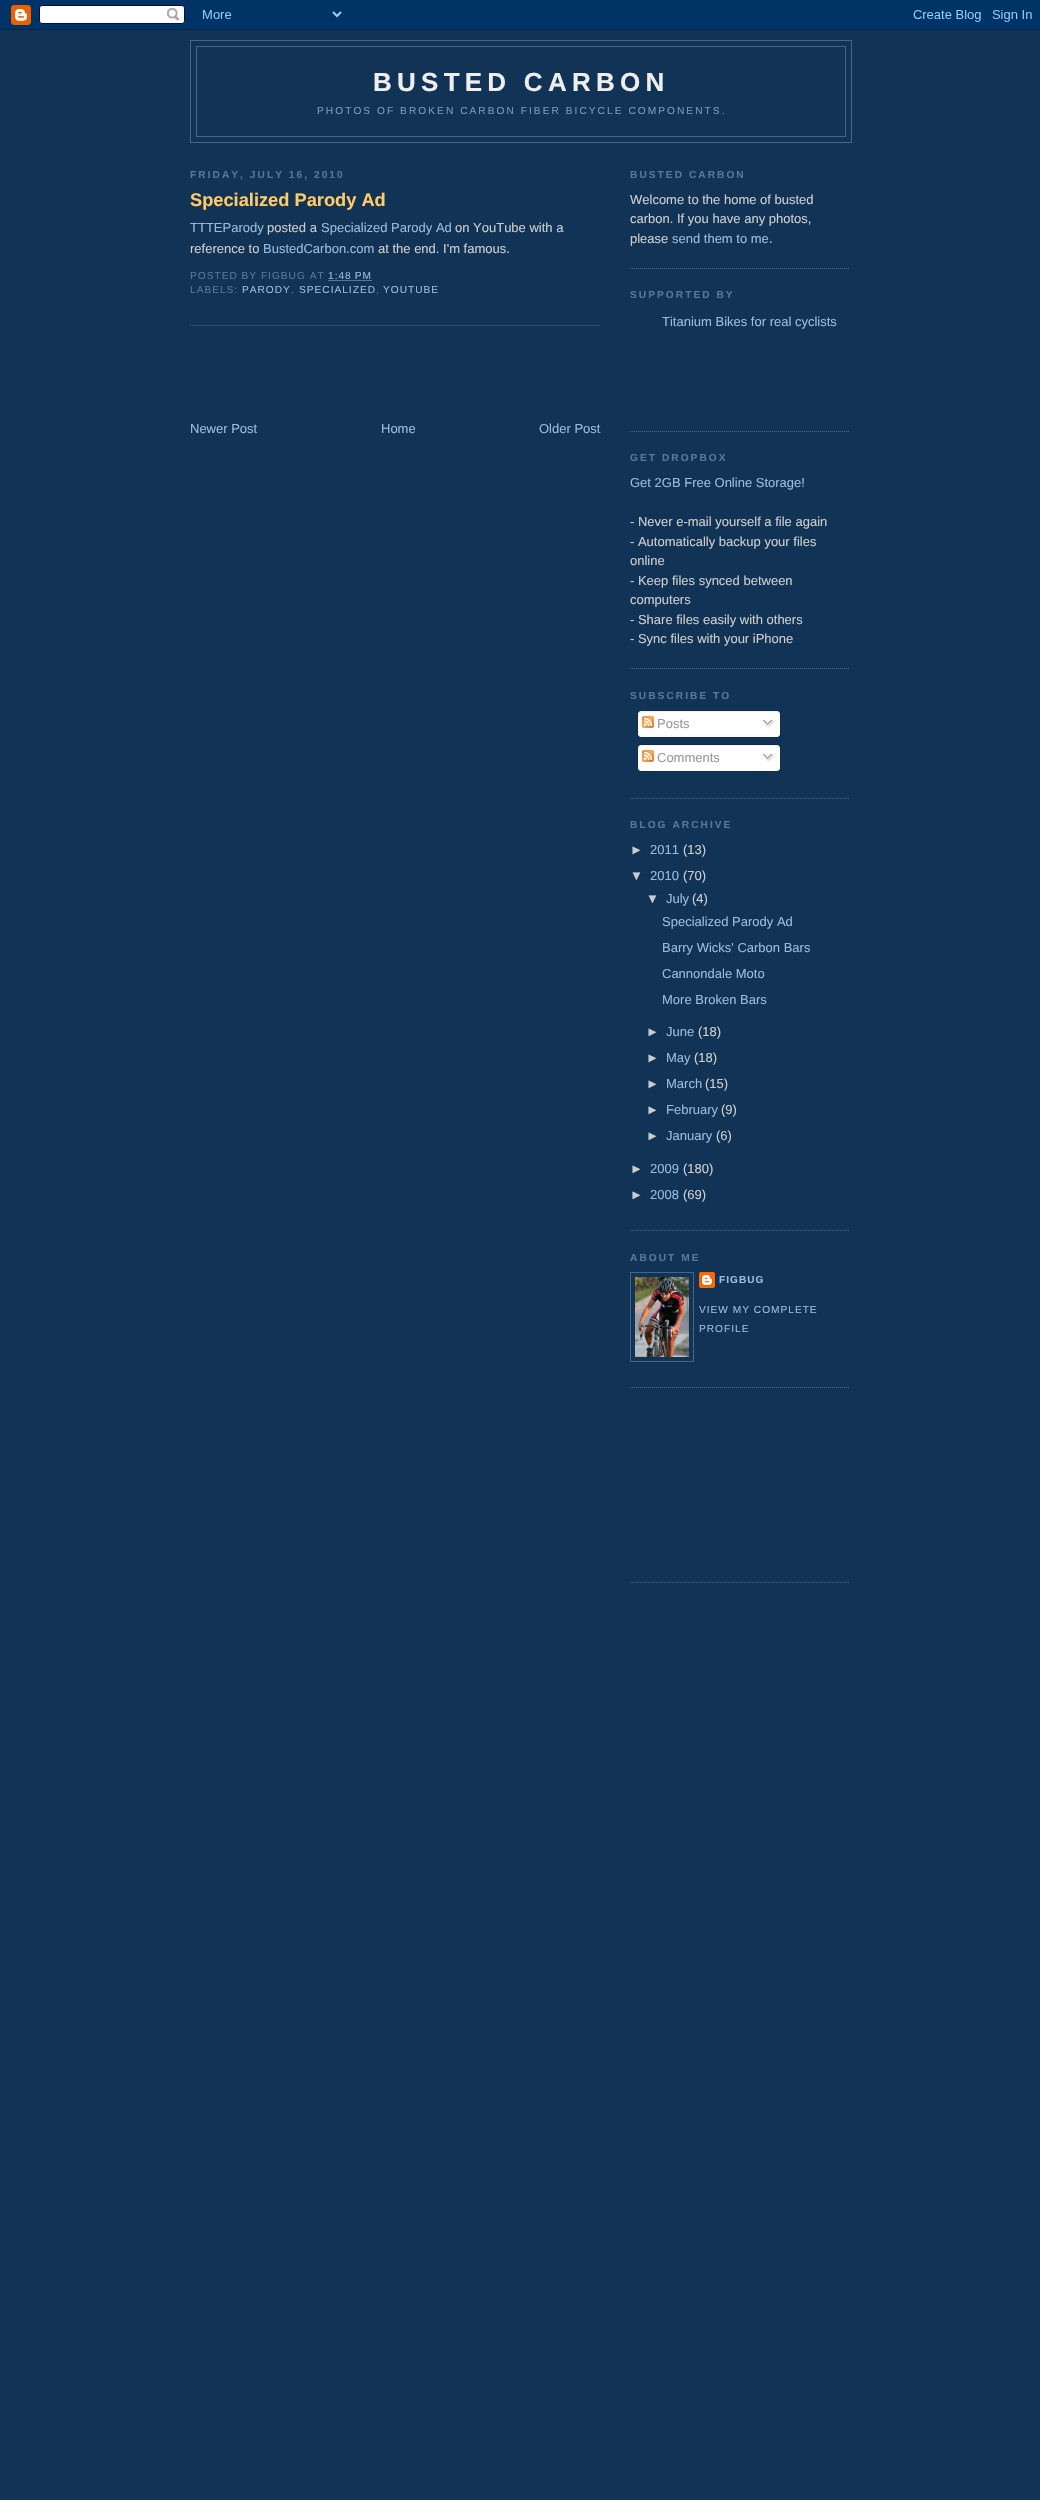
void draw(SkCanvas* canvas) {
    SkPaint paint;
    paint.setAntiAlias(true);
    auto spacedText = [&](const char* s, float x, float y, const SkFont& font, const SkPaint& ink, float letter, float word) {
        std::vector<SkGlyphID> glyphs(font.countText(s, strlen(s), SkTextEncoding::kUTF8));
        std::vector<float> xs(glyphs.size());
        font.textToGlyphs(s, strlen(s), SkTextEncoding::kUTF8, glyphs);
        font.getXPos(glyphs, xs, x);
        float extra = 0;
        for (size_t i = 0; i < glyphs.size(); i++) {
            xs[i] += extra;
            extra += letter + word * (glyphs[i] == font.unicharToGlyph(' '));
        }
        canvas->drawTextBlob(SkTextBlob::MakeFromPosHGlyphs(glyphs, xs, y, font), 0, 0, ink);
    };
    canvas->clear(0xFF113355);
    canvas->drawImageRect(SkImages::DeferredFromEncodedData(SkData::MakeFromFileName("img1.png")), SkRect::MakeXYWH(0, 0, 1040, 30), SkSamplingOptions());
    paint.setStyle(SkPaint::kStroke_Style);
    paint.setStrokeWidth(1);
    paint.setColor(0xFF446688);
    canvas->drawRect(SkRect::MakeXYWH(190.5f, 40.5f, 661, 102), paint);
    canvas->drawRect(SkRect::MakeXYWH(196.5f, 46.5f, 649, 90), paint);
    SkFont font1(fontMgr->matchFamilyStyle("Liberation Sans", SkFontStyle::Bold()), 26);
    font1.setSubpixel(true);
    paint.setStyle(SkPaint::kFill_Style);
    paint.setColor(0xFFEEEEEE);
    spacedText("BUSTED CARBON", 373, 91, font1, paint, 5.25f, 0);
    SkFont font2(fontMgr->matchFamilyStyle("Liberation Sans", SkFontStyle::Normal()), 10.15f);
    font2.setSubpixel(true);
    paint.setColor(0xFF7799BB);
    spacedText("PHOTOS OF BROKEN CARBON FIBER BICYCLE COMPONENTS.", 317, 114, font2, paint, 2.05f, 0);
    SkFont font3(fontMgr->matchFamilyStyle("Liberation Sans", SkFontStyle::Bold()), 10.15f);
    font3.setSubpixel(true);
    paint.setColor(0xFF557799);
    spacedText("FRIDAY, JULY 16, 2010", 190, 178, font3, paint, 2.05f, 0);
    paint.setStyle(SkPaint::kStroke_Style);
    paint.setColor(0xFF446688);
    paint.setPathEffect(SkDashPathEffect::Make({{1, 1}}, 0));
    canvas->drawPath(SkPathBuilder().moveTo(190, 325.5f).lineTo(600, 325.5f).detach(), paint);
    paint.setPathEffect(nullptr);
    SkFont font4(fontMgr->matchFamilyStyle("Liberation Sans", SkFontStyle::Bold()), 18.25f);
    font4.setSubpixel(true);
    paint.setStyle(SkPaint::kFill_Style);
    paint.setColor(0xFFFFCC66);
    canvas->drawString("Specialized Parody Ad", 190, 206, font4, paint);
    SkFont font5(fontMgr->matchFamilyStyle("Liberation Sans", SkFontStyle::Normal()), 13);
    font5.setSubpixel(true);
    paint.setColor(0xFF99BBDD);
    canvas->drawString("TTTEParody", 190, 232, font5, paint);
    paint.setColor(0xFFCCCCCC);
    canvas->drawString("posted a", 267, 232, font5, paint);
    paint.setColor(0xFF99BBDD);
    canvas->drawString("Specialized Parody Ad", 321, 232, font5, paint);
    paint.setColor(0xFFCCCCCC);
    canvas->drawString("on YouTube with a", 455, 232, font5, paint);
    canvas->drawString("reference to", 190, 253, font5, paint);
    paint.setColor(0xFF99BBDD);
    canvas->drawString("BustedCarbon.com", 263, 253, font5, paint);
    paint.setColor(0xFFCCCCCC);
    canvas->drawString("at the end. I'm famous.", 378, 253, font5, paint);
    paint.setColor(0xFF557799);
    spacedText("POSTED BY FIGBUG AT", 190, 279, font2, paint, 1, 0);
    paint.setColor(0xFF99BBDD);
    spacedText("1:48 PM", 328, 279, font2, paint, 1, 0);
    paint.setStyle(SkPaint::kStroke_Style);
    paint.setPathEffect(SkDashPathEffect::Make({{1, 1}}, 0));
    canvas->drawPath(SkPathBuilder().moveTo(328.5f, 280.5f).lineTo(372.5f, 280.5f).detach(), paint);
    paint.setPathEffect(nullptr);
    paint.setStyle(SkPaint::kFill_Style);
    paint.setColor(0xFF557799);
    spacedText("LABELS:", 190, 293, font2, paint, 1, 0);
    paint.setColor(0xFF99BBDD);
    spacedText("PARODY", 242, 293, font2, paint, 1, 0);
    paint.setColor(0xFF557799);
    spacedText(",", 291, 293, font2, paint, 1, 0);
    paint.setColor(0xFF99BBDD);
    spacedText("SPECIALIZED", 299, 293, font2, paint, 1, 0);
    paint.setColor(0xFF557799);
    spacedText(",", 376, 293, font2, paint, 1, 0);
    paint.setColor(0xFF99BBDD);
    spacedText("YOUTUBE", 383, 293, font2, paint, 1, 0);
    canvas->drawString("Newer Post", 190, 433, font5, paint);
    canvas->drawString("Home", 381, 433, font5, paint);
    canvas->drawString("Older Post", 539, 433, font5, paint);
    paint.setStyle(SkPaint::kStroke_Style);
    paint.setColor(0xFF446688);
    paint.setPathEffect(SkDashPathEffect::Make({{1, 1}}, 0));
    canvas->drawPath(SkPathBuilder().moveTo(630, 268.5f).lineTo(850, 268.5f).detach(), paint);
    paint.setPathEffect(nullptr);
    paint.setStyle(SkPaint::kFill_Style);
    paint.setColor(0xFF557799);
    spacedText("BUSTED CARBON", 630, 178, font3, paint, 2.05f, 0);
    paint.setColor(0xFFCCCCCC);
    canvas->drawString("Welcome to the home of busted", 630, 204, font5, paint);
    canvas->drawString("carbon. If you have any photos,", 630, 223, font5, paint);
    canvas->drawString("please", 630, 243, font5, paint);
    paint.setColor(0xFF99BBDD);
    canvas->drawString("send them to me", 672, 243, font5, paint);
    paint.setColor(0xFFCCCCCC);
    canvas->drawString(".", 769, 243, font5, paint);
    paint.setStyle(SkPaint::kStroke_Style);
    paint.setColor(0xFF446688);
    paint.setPathEffect(SkDashPathEffect::Make({{1, 1}}, 0));
    canvas->drawPath(SkPathBuilder().moveTo(630, 431.5f).lineTo(850, 431.5f).detach(), paint);
    paint.setPathEffect(nullptr);
    paint.setStyle(SkPaint::kFill_Style);
    paint.setColor(0xFF557799);
    spacedText("SUPPORTED BY", 630, 298, font3, paint, 2.05f, 0);
    paint.setColor(0xFF99BBDD);
    canvas->drawString("Titanium Bikes for real cyclists", 662, 326, font5, paint);
    paint.setStyle(SkPaint::kStroke_Style);
    paint.setColor(0xFF446688);
    paint.setPathEffect(SkDashPathEffect::Make({{1, 1}}, 0));
    canvas->drawPath(SkPathBuilder().moveTo(630, 668.5f).lineTo(850, 668.5f).detach(), paint);
    paint.setPathEffect(nullptr);
    paint.setStyle(SkPaint::kFill_Style);
    paint.setColor(0xFF557799);
    spacedText("GET DROPBOX", 630, 461, font3, paint, 2.05f, 0);
    paint.setColor(0xFF99BBDD);
    canvas->drawString("Get 2GB Free Online Storage!", 630, 487, font5, paint);
    paint.setColor(0xFFCCCCCC);
    canvas->drawString("- Never e-mail yourself a file again", 630, 526, font5, paint);
    canvas->drawString("- Automatically backup your files", 630, 546, font5, paint);
    canvas->drawString("online", 630, 565, font5, paint);
    canvas->drawString("- Keep files synced between", 630, 585, font5, paint);
    canvas->drawString("computers", 630, 604, font5, paint);
    canvas->drawString("- Share files easily with others", 630, 624, font5, paint);
    canvas->drawString("- Sync files with your iPhone", 630, 643, font5, paint);
    paint.setStyle(SkPaint::kStroke_Style);
    paint.setColor(0xFF446688);
    paint.setPathEffect(SkDashPathEffect::Make({{1, 1}}, 0));
    canvas->drawPath(SkPathBuilder().moveTo(630, 798.5f).lineTo(850, 798.5f).detach(), paint);
    paint.setPathEffect(nullptr);
    paint.setStyle(SkPaint::kFill_Style);
    paint.setColor(0xFF557799);
    spacedText("SUBSCRIBE TO", 630, 699, font3, paint, 2.05f, 0);
    canvas->drawImageRect(SkImages::DeferredFromEncodedData(SkData::MakeFromFileName("img2.png")), SkRect::MakeXYWH(637, 710, 144, 25), SkSamplingOptions());
    canvas->drawImageRect(SkImages::DeferredFromEncodedData(SkData::MakeFromFileName("img3.png")), SkRect::MakeXYWH(642, 716, 12, 12), SkSamplingOptions());
    paint.setColor(0xFF999999);
    canvas->drawString("Posts", 657, 728, font5, paint);
    canvas->drawImageRect(SkImages::DeferredFromEncodedData(SkData::MakeFromFileName("img4.png")), SkRect::MakeXYWH(762, 719, 13, 9), SkSamplingOptions());
    canvas->drawImageRect(SkImages::DeferredFromEncodedData(SkData::MakeFromFileName("img5.png")), SkRect::MakeXYWH(637, 735, 144, 3), SkSamplingOptions());
    canvas->drawImageRect(SkImages::DeferredFromEncodedData(SkData::MakeFromFileName("img2.png")), SkRect::MakeXYWH(637, 744, 144, 25), SkSamplingOptions());
    canvas->drawImageRect(SkImages::DeferredFromEncodedData(SkData::MakeFromFileName("img3.png")), SkRect::MakeXYWH(642, 750, 12, 12), SkSamplingOptions());
    canvas->drawString("Comments", 657, 762, font5, paint);
    canvas->drawImageRect(SkImages::DeferredFromEncodedData(SkData::MakeFromFileName("img4.png")), SkRect::MakeXYWH(762, 753, 13, 9), SkSamplingOptions());
    canvas->drawImageRect(SkImages::DeferredFromEncodedData(SkData::MakeFromFileName("img5.png")), SkRect::MakeXYWH(637, 769, 144, 3), SkSamplingOptions());
    paint.setStyle(SkPaint::kStroke_Style);
    paint.setColor(0xFF446688);
    paint.setPathEffect(SkDashPathEffect::Make({{1, 1}}, 0));
    canvas->drawPath(SkPathBuilder().moveTo(630, 1230.5f).lineTo(850, 1230.5f).detach(), paint);
    paint.setPathEffect(nullptr);
    paint.setStyle(SkPaint::kFill_Style);
    paint.setColor(0xFF557799);
    spacedText("BLOG ARCHIVE", 630, 828, font3, paint, 2.05f, 0);
    paint.setColor(0xFFCCCCCC);
    canvas->drawString("►", 630, 854, font5, paint);
    paint.setColor(0xFF99BBDD);
    canvas->drawString("2011", 650, 854, font5, paint);
    paint.setColor(0xFFCCCCCC);
    canvas->drawString("(13)", 683, 854, font5, paint);
    canvas->drawString("▼", 630, 880, font5, paint);
    paint.setColor(0xFF99BBDD);
    canvas->drawString("2010", 650, 880, font5, paint);
    paint.setColor(0xFFCCCCCC);
    canvas->drawString("(70)", 683, 880, font5, paint);
    canvas->drawString("▼", 646, 903, font5, paint);
    paint.setColor(0xFF99BBDD);
    canvas->drawString("July", 666, 903, font5, paint);
    paint.setColor(0xFFCCCCCC);
    canvas->drawString("(4)", 692, 903, font5, paint);
    paint.setColor(0xFF99BBDD);
    canvas->drawString("Specialized Parody Ad", 662, 926, font5, paint);
    canvas->drawString("Barry Wicks' Carbon Bars", 662, 952, font5, paint);
    canvas->drawString("Cannondale Moto", 662, 978, font5, paint);
    canvas->drawString("More Broken Bars", 662, 1004, font5, paint);
    paint.setColor(0xFFCCCCCC);
    canvas->drawString("►", 646, 1036, font5, paint);
    paint.setColor(0xFF99BBDD);
    canvas->drawString("June", 666, 1036, font5, paint);
    paint.setColor(0xFFCCCCCC);
    canvas->drawString("(18)", 698, 1036, font5, paint);
    canvas->drawString("►", 646, 1062, font5, paint);
    paint.setColor(0xFF99BBDD);
    canvas->drawString("May", 666, 1062, font5, paint);
    paint.setColor(0xFFCCCCCC);
    canvas->drawString("(18)", 694, 1062, font5, paint);
    canvas->drawString("►", 646, 1088, font5, paint);
    paint.setColor(0xFF99BBDD);
    canvas->drawString("March", 666, 1088, font5, paint);
    paint.setColor(0xFFCCCCCC);
    canvas->drawString("(15)", 705, 1088, font5, paint);
    canvas->drawString("►", 646, 1114, font5, paint);
    paint.setColor(0xFF99BBDD);
    canvas->drawString("February", 666, 1114, font5, paint);
    paint.setColor(0xFFCCCCCC);
    canvas->drawString("(9)", 721, 1114, font5, paint);
    canvas->drawString("►", 646, 1140, font5, paint);
    paint.setColor(0xFF99BBDD);
    canvas->drawString("January", 666, 1140, font5, paint);
    paint.setColor(0xFFCCCCCC);
    canvas->drawString("(6)", 716, 1140, font5, paint);
    canvas->drawString("►", 630, 1173, font5, paint);
    paint.setColor(0xFF99BBDD);
    canvas->drawString("2009", 650, 1173, font5, paint);
    paint.setColor(0xFFCCCCCC);
    canvas->drawString("(180)", 683, 1173, font5, paint);
    canvas->drawString("►", 630, 1199, font5, paint);
    paint.setColor(0xFF99BBDD);
    canvas->drawString("2008", 650, 1199, font5, paint);
    paint.setColor(0xFFCCCCCC);
    canvas->drawString("(69)", 683, 1199, font5, paint);
    paint.setStyle(SkPaint::kStroke_Style);
    paint.setColor(0xFF446688);
    paint.setPathEffect(SkDashPathEffect::Make({{1, 1}}, 0));
    canvas->drawPath(SkPathBuilder().moveTo(630, 1387.5f).lineTo(850, 1387.5f).detach(), paint);
    paint.setPathEffect(nullptr);
    paint.setStyle(SkPaint::kFill_Style);
    paint.setColor(0xFF557799);
    spacedText("ABOUT ME", 630, 1261, font3, paint, 2.05f, 0);
    paint.setStyle(SkPaint::kStroke_Style);
    paint.setColor(0xFF446688);
    canvas->drawRect(SkRect::MakeXYWH(630.5f, 1272.5f, 63, 89), paint);
    canvas->drawImageRect(SkImages::DeferredFromEncodedData(SkData::MakeFromFileName("img6.png")), SkRect::MakeXYWH(635, 1277, 54, 80), SkSamplingOptions());
    canvas->drawImageRect(SkImages::DeferredFromEncodedData(SkData::MakeFromFileName("img7.png")), SkRect::MakeXYWH(699, 1272, 16, 16), SkSamplingOptions());
    paint.setStyle(SkPaint::kFill_Style);
    paint.setColor(0xFF99BBDD);
    spacedText("FIGBUG", 719, 1283, font3, paint, 1, 0);
    spacedText("VIEW MY COMPLETE", 699, 1313, font2, paint, 1, 0);
    spacedText("PROFILE", 699, 1332, font2, paint, 1, 0);
    paint.setStyle(SkPaint::kStroke_Style);
    paint.setColor(0xFF446688);
    paint.setPathEffect(SkDashPathEffect::Make({{1, 1}}, 0));
    canvas->drawPath(SkPathBuilder().moveTo(630, 1582.5f).lineTo(850, 1582.5f).detach(), paint);
    paint.setPathEffect(nullptr);
}
